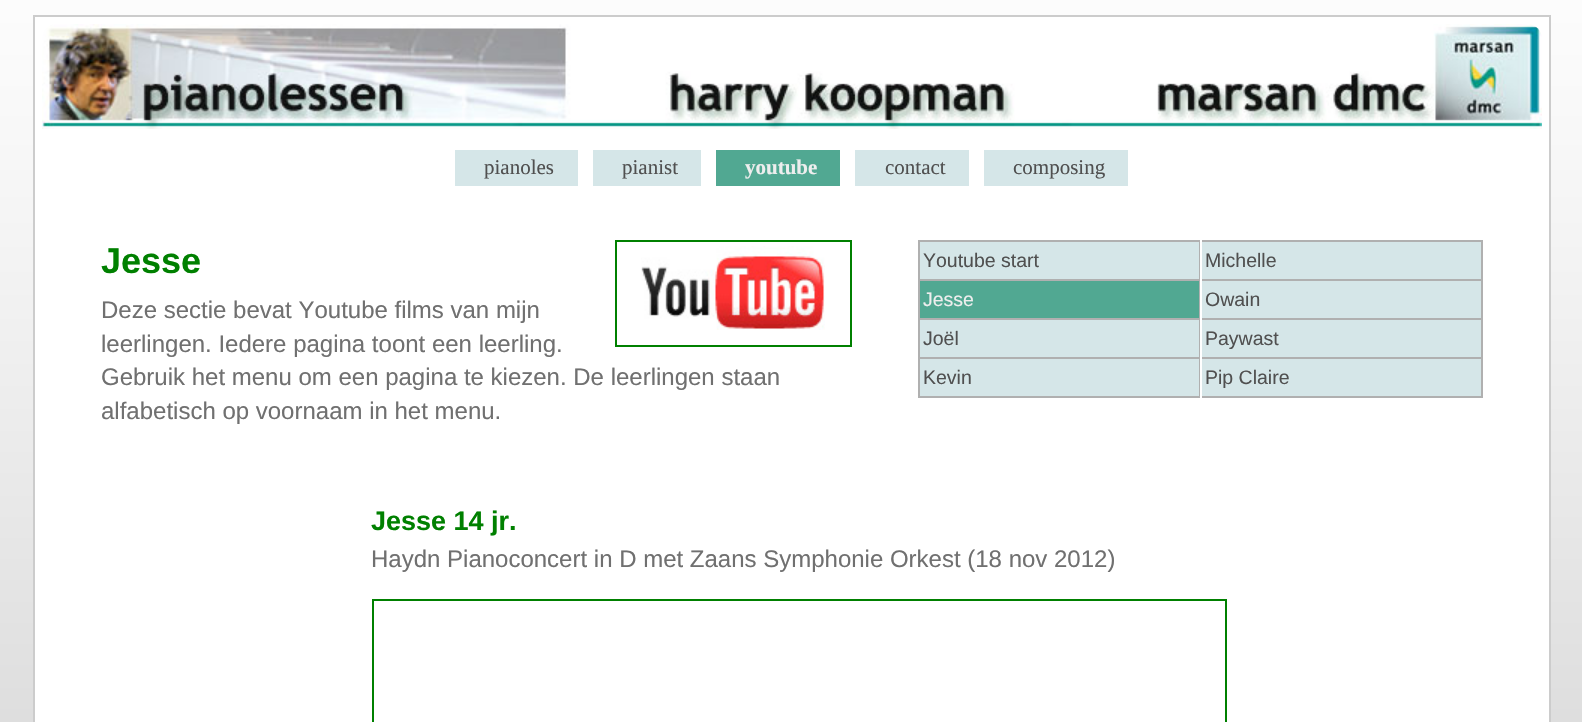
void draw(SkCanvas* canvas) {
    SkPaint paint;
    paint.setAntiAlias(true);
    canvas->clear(0xFFFFFFFF);
    canvas->drawImageRect(SkImages::DeferredFromEncodedData(SkData::MakeFromFileName("img1.png")), SkRect::MakeXYWH(0, 0, 1582, 722), SkSamplingOptions());
    paint.setColor(0xFFFFFFFF);
    canvas->drawRect(SkRect::MakeXYWH(34, 16, 1516, 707), paint);
    paint.setStyle(SkPaint::kStroke_Style);
    paint.setStrokeWidth(2);
    paint.setColor(0xFFCCCCCC);
    canvas->drawRect(SkRect::MakeXYWH(34, 16, 1516, 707), paint);
    canvas->drawImageRect(SkImages::DeferredFromEncodedData(SkData::MakeFromFileName("img2.png")), SkRect::MakeXYWH(42, 24, 1500, 105), SkSamplingOptions());
    paint.setStyle(SkPaint::kFill_Style);
    paint.setColor(0xFFD5E6E8);
    canvas->drawRect(SkRect::MakeXYWH(455, 150, 123, 36), paint);
    SkFont font1(fontMgr->matchFamilyStyle("Liberation Serif", SkFontStyle::Normal()), 21);
    font1.setSubpixel(true);
    paint.setColor(0xFF505050);
    canvas->drawString("pianoles", 484, 174, font1, paint);
    paint.setColor(0xFFD5E6E8);
    canvas->drawRect(SkRect::MakeXYWH(593, 150, 108, 36), paint);
    paint.setColor(0xFF505050);
    canvas->drawString("pianist", 622, 174, font1, paint);
    paint.setColor(0xFF51A892);
    canvas->drawRect(SkRect::MakeXYWH(716, 150, 124, 36), paint);
    SkFont font2(fontMgr->matchFamilyStyle("Liberation Serif", SkFontStyle::Bold()), 21);
    font2.setSubpixel(true);
    paint.setColor(0xFFEEEEEE);
    canvas->drawString("youtube", 745, 174, font2, paint);
    paint.setColor(0xFFD5E6E8);
    canvas->drawRect(SkRect::MakeXYWH(855, 150, 114, 36), paint);
    paint.setColor(0xFF505050);
    canvas->drawString("contact", 885, 174, font1, paint);
    paint.setColor(0xFFD5E6E8);
    canvas->drawRect(SkRect::MakeXYWH(984, 150, 144, 36), paint);
    paint.setColor(0xFF505050);
    canvas->drawString("composing", 1013, 174, font1, paint);
    SkFont font3(fontMgr->matchFamilyStyle("Liberation Sans", SkFontStyle::Bold()), 36);
    font3.setSubpixel(true);
    paint.setColor(0xFF008000);
    canvas->drawString("Jesse", 101, 273, font3, paint);
    paint.setStyle(SkPaint::kStroke_Style);
    canvas->drawRect(SkRect::MakeXYWH(616, 241, 235, 105), paint);
    canvas->drawImageRect(SkImages::DeferredFromEncodedData(SkData::MakeFromFileName("img3.png")), SkRect::MakeXYWH(641, 246, 184, 84), SkSamplingOptions());
    SkFont font4(fontMgr->matchFamilyStyle("Liberation Sans", SkFontStyle::Normal()), 24);
    font4.setSubpixel(true);
    paint.setStyle(SkPaint::kFill_Style);
    paint.setColor(0xFF707070);
    canvas->drawString("Deze sectie bevat Youtube films van mijn", 101, 318, font4, paint);
    canvas->drawString("leerlingen. Iedere pagina toont een leerling.", 101, 352, font4, paint);
    canvas->drawString("Gebruik het menu om een pagina te kiezen. De leerlingen staan", 101, 385, font4, paint);
    canvas->drawString("alfabetisch op voornaam in het menu.", 101, 419, font4, paint);
    paint.setStyle(SkPaint::kStroke_Style);
    paint.setColor(0xFFB0B0B0);
    canvas->drawRect(SkRect::MakeXYWH(919, 241, 280, 156), paint);
    paint.setStyle(SkPaint::kFill_Style);
    paint.setColor(0xFFD5E6E8);
    canvas->drawRect(SkRect::MakeXYWH(920, 242, 279, 37), paint);
    paint.setColor(0xFFB0B0B0);
    canvas->drawRect(SkRect::MakeXYWH(920, 279, 279, 2), paint);
    SkFont font5(fontMgr->matchFamilyStyle("Liberation Sans", SkFontStyle::Normal()), 19.5f);
    font5.setSubpixel(true);
    paint.setColor(0xFF505050);
    canvas->drawString("Youtube start", 923, 267, font5, paint);
    paint.setColor(0xFFB0B0B0);
    canvas->drawRect(SkRect::MakeXYWH(920, 318, 279, 2), paint);
    paint.setColor(0xFF51A892);
    canvas->drawRect(SkRect::MakeXYWH(920, 281, 279, 37), paint);
    paint.setColor(0xFFEEEEEE);
    canvas->drawString("Jesse", 923, 306, font5, paint);
    paint.setColor(0xFFD5E6E8);
    canvas->drawRect(SkRect::MakeXYWH(920, 320, 279, 37), paint);
    paint.setColor(0xFFB0B0B0);
    canvas->drawRect(SkRect::MakeXYWH(920, 357, 279, 2), paint);
    paint.setColor(0xFF505050);
    canvas->drawString("Joël", 923, 345, font5, paint);
    paint.setColor(0xFFD5E6E8);
    canvas->drawRect(SkRect::MakeXYWH(920, 359, 279, 37), paint);
    paint.setColor(0xFF505050);
    canvas->drawString("Kevin", 923, 384, font5, paint);
    paint.setColor(0xFFB0B0B0);
    canvas->drawRect(SkRect::MakeXYWH(1202, 240, 280, 2), paint);
    canvas->drawRect(SkRect::MakeXYWH(1481, 240, 2, 158), paint);
    canvas->drawRect(SkRect::MakeXYWH(1202, 396, 280, 2), paint);
    paint.setColor(0xFFD5E6E8);
    canvas->drawRect(SkRect::MakeXYWH(1202, 242, 279, 37), paint);
    paint.setColor(0xFFB0B0B0);
    canvas->drawRect(SkRect::MakeXYWH(1202, 279, 279, 2), paint);
    paint.setColor(0xFF505050);
    canvas->drawString("Michelle", 1205, 267, font5, paint);
    paint.setColor(0xFFD5E6E8);
    canvas->drawRect(SkRect::MakeXYWH(1202, 281, 279, 37), paint);
    paint.setColor(0xFFB0B0B0);
    canvas->drawRect(SkRect::MakeXYWH(1202, 318, 279, 2), paint);
    paint.setColor(0xFF505050);
    canvas->drawString("Owain", 1205, 306, font5, paint);
    paint.setColor(0xFFD5E6E8);
    canvas->drawRect(SkRect::MakeXYWH(1202, 320, 279, 37), paint);
    paint.setColor(0xFFB0B0B0);
    canvas->drawRect(SkRect::MakeXYWH(1202, 357, 279, 2), paint);
    paint.setColor(0xFF505050);
    canvas->drawString("Paywast", 1205, 345, font5, paint);
    paint.setColor(0xFFD5E6E8);
    canvas->drawRect(SkRect::MakeXYWH(1202, 359, 279, 37), paint);
    paint.setColor(0xFF505050);
    canvas->drawString("Pip Claire", 1205, 384, font5, paint);
    SkFont font6(fontMgr->matchFamilyStyle("Liberation Sans", SkFontStyle::Bold()), 27);
    font6.setSubpixel(true);
    paint.setColor(0xFF008000);
    canvas->drawString("Jesse 14 jr.", 371, 530, font6, paint);
    paint.setColor(0xFF707070);
    canvas->drawString("Haydn Pianoconcert in D met Zaans Symphonie Orkest (18 nov 2012)", 371, 567, font4, paint);
    paint.setStyle(SkPaint::kStroke_Style);
    paint.setColor(0xFF008000);
    canvas->drawRect(SkRect::MakeXYWH(373, 600, 853, 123), paint);
}
